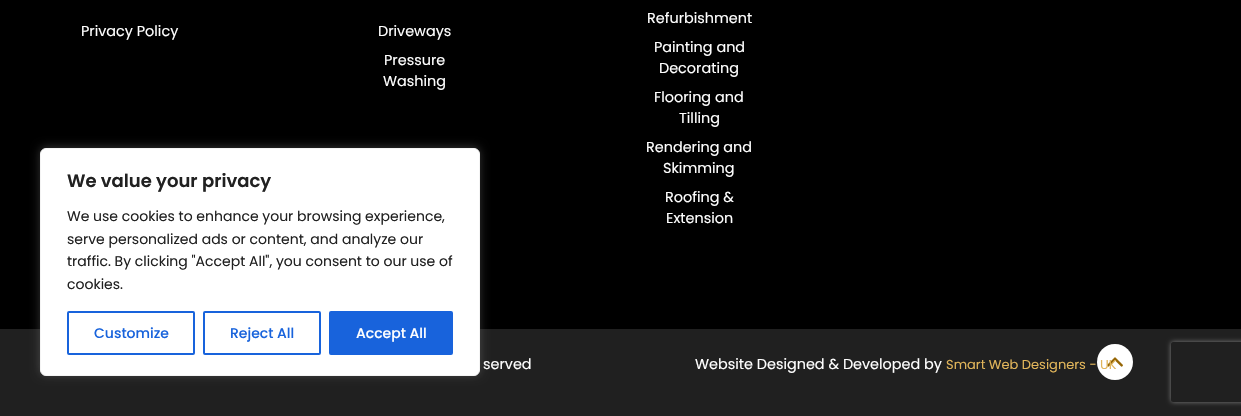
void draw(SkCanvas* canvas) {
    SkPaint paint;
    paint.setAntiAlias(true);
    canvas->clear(0xFF000000);
    SkFont font1(fontMgr->matchFamilyStyle("Poppins", SkFontStyle::Normal()), 14.4f);
    font1.setSubpixel(true);
    paint.setColor(0xFFFFFFFF);
    canvas->drawString("Privacy Policy", 81, 36, font1, paint);
    canvas->drawString("Driveways", 378, 36, font1, paint);
    canvas->drawString("Pressure", 384, 65, font1, paint);
    canvas->drawString("Washing", 383, 86, font1, paint);
    canvas->drawString("Refurbishment", 647, 23, font1, paint);
    canvas->drawString("Painting and", 654, 52, font1, paint);
    canvas->drawString("Decorating", 659, 73, font1, paint);
    canvas->drawString("Flooring and", 654, 102, font1, paint);
    canvas->drawString("Tilling", 679, 123, font1, paint);
    canvas->drawString("Rendering and", 646, 152, font1, paint);
    canvas->drawString("Skimming", 663, 173, font1, paint);
    canvas->drawString("Roofing &", 665, 202, font1, paint);
    canvas->drawString("Extension", 666, 223, font1, paint);
    paint.setColor(0xFF202020);
    canvas->drawRect(SkRect::MakeXYWH(0, 329, 1241, 87), paint);
    paint.setColor(0xFFFFFFFF);
    canvas->drawCircle(1115, 362, 18, paint);
    canvas->drawImageRect(SkImages::DeferredFromEncodedData(SkData::MakeFromFileName("img1.png")), SkRect::MakeXYWH(1107, 357, 16, 10), SkSamplingOptions());
    canvas->drawString("served", 483, 369, font1, paint);
    canvas->drawString("Website Designed & Developed by", 695, 369, font1, paint);
    SkFont font2(fontMgr->matchFamilyStyle("Poppins", SkFontStyle::Normal()), 13);
    font2.setSubpixel(true);
    paint.setColor(0xFFE1B55A);
    canvas->drawString("Smart Web Designers - UK", 946, 369, font2, paint);
    paint.setColor(0x4DACABAB);
    paint.setMaskFilter(SkMaskFilter::MakeBlur(kNormal_SkBlurStyle, 5));
    canvas->drawRoundRect(SkRect::MakeXYWH(40, 147, 440, 228), 6, 6, paint);
    paint.setMaskFilter(nullptr);
    paint.setColor(0xFFFFFFFF);
    canvas->drawRoundRect(SkRect::MakeXYWH(40.5f, 148.5f, 439, 227), 5.5f, 5.5f, paint);
    paint.setStyle(SkPaint::kStroke_Style);
    paint.setStrokeWidth(1);
    paint.setColor(0xFFF4F4F4);
    canvas->drawRoundRect(SkRect::MakeXYWH(40.5f, 148.5f, 439, 227), 5.5f, 5.5f, paint);
    SkFont font3(fontMgr->matchFamilyStyle("Poppins", SkFontStyle(600, SkFontStyle::kNormal_Width, SkFontStyle::kUpright_Slant)), 18);
    font3.setSubpixel(true);
    paint.setStyle(SkPaint::kFill_Style);
    paint.setColor(0xFF212121);
    canvas->drawString("We value your privacy", 67, 187, font3, paint);
    SkFont font4(fontMgr->matchFamilyStyle("Poppins", SkFontStyle::Normal()), 14);
    font4.setSubpixel(true);
    canvas->drawString("We use cookies to enhance your browsing experience,", 67, 221, font4, paint);
    canvas->drawString("serve personalized ads or content, and analyze our", 67, 244, font4, paint);
    canvas->drawString("traffic. By clicking \"Accept All\", you consent to our use of", 67, 266, font4, paint);
    canvas->drawString("cookies.", 67, 289, font4, paint);
    paint.setStyle(SkPaint::kStroke_Style);
    paint.setStrokeWidth(2);
    paint.setColor(0xFF1863DC);
    canvas->drawRoundRect(SkRect::MakeXYWH(68, 312, 126, 42), 1, 1, paint);
    SkFont font5(fontMgr->matchFamilyStyle("Poppins", SkFontStyle(500, SkFontStyle::kNormal_Width, SkFontStyle::kUpright_Slant)), 14);
    font5.setSubpixel(true);
    paint.setStyle(SkPaint::kFill_Style);
    canvas->drawString("Customize", 94, 338, font5, paint);
    paint.setStyle(SkPaint::kStroke_Style);
    canvas->drawRoundRect(SkRect::MakeXYWH(204, 312, 116, 42), 1, 1, paint);
    paint.setStyle(SkPaint::kFill_Style);
    canvas->drawString("Reject All", 230, 338, font5, paint);
    canvas->drawRoundRect(SkRect::MakeXYWH(330, 312, 122, 42), 1, 1, paint);
    paint.setStyle(SkPaint::kStroke_Style);
    canvas->drawRoundRect(SkRect::MakeXYWH(330, 312, 122, 42), 1, 1, paint);
    paint.setStyle(SkPaint::kFill_Style);
    paint.setColor(0xFFFFFFFF);
    canvas->drawString("Accept All", 356, 338, font5, paint);
    canvas->save();
    canvas->clipPath(SkPathBuilder(SkPathFillType::kEvenOdd).moveTo(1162, 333).lineTo(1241, 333).lineTo(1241, 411).lineTo(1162, 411).close().moveTo(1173, 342).lineTo(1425, 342).cubicTo(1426, 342, 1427, 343, 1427, 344).lineTo(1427, 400).cubicTo(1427, 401, 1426, 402, 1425, 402).lineTo(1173, 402).cubicTo(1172, 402, 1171, 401, 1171, 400).lineTo(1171, 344).cubicTo(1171, 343, 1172, 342, 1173, 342).close().detach(), true);
    paint.setColor(0xFF808080);
    paint.setMaskFilter(SkMaskFilter::MakeBlur(kNormal_SkBlurStyle, 2.5f));
    canvas->drawRoundRect(SkRect::MakeXYWH(1171, 342, 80, 60), 2, 2, paint);
    paint.setMaskFilter(nullptr);
    canvas->restore();
}
